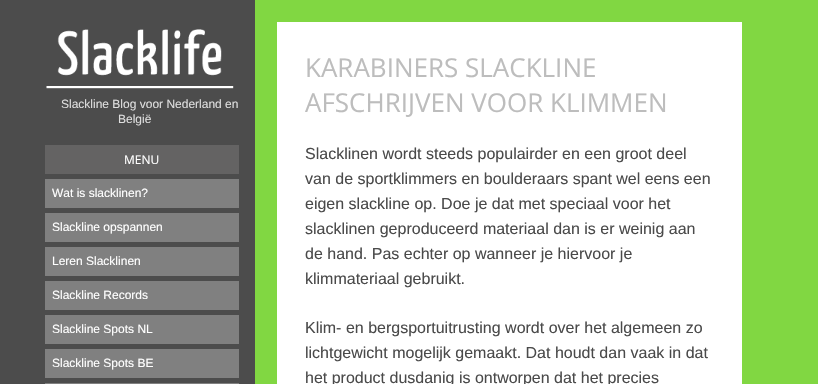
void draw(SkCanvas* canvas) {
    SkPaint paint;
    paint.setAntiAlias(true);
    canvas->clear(0xFF81D742);
    paint.setColor(0xFF4C4C4C);
    canvas->drawRect(SkRect::MakeXYWH(0, 0, 255, 384), paint);
    canvas->drawImageRect(SkImages::DeferredFromEncodedData(SkData::MakeFromFileName("img1.png")), SkRect::MakeXYWH(46, 29, 188, 60), SkSamplingOptions());
    SkFont font1(fontMgr->matchFamilyStyle("Liberation Sans", SkFontStyle::Normal()), 12);
    font1.setSubpixel(true);
    paint.setColor(0xFFDEDEDE);
    canvas->drawString("Slackline Blog voor Nederland en", 61, 108, font1, paint);
    canvas->drawString("België", 118, 123, font1, paint);
    paint.setColor(0xFF646363);
    canvas->drawRect(SkRect::MakeXYWH(45, 145, 194, 29), paint);
    SkFont font2(fontMgr->matchFamilyStyle("Open Sans", SkFontStyle::Normal()), 12);
    font2.setSubpixel(true);
    paint.setColor(0xFFFFFFFF);
    canvas->drawString("MENU", 124, 164, font2, paint);
    paint.setColor(0xFF808080);
    canvas->drawRect(SkRect::MakeXYWH(45, 179, 194, 29), paint);
    paint.setColor(0xFFFFFFFF);
    canvas->drawString("Wat is slacklinen?", 52, 197, font1, paint);
    paint.setColor(0xFF808080);
    canvas->drawRect(SkRect::MakeXYWH(45, 213, 194, 29), paint);
    paint.setColor(0xFFFFFFFF);
    canvas->drawString("Slackline opspannen", 52, 231, font1, paint);
    paint.setColor(0xFF808080);
    canvas->drawRect(SkRect::MakeXYWH(45, 247, 194, 29), paint);
    paint.setColor(0xFFFFFFFF);
    canvas->drawString("Leren Slacklinen", 52, 265, font1, paint);
    paint.setColor(0xFF808080);
    canvas->drawRect(SkRect::MakeXYWH(45, 281, 194, 29), paint);
    paint.setColor(0xFFFFFFFF);
    canvas->drawString("Slackline Records", 52, 299, font1, paint);
    paint.setColor(0xFF808080);
    canvas->drawRect(SkRect::MakeXYWH(45, 315, 194, 29), paint);
    paint.setColor(0xFFFFFFFF);
    canvas->drawString("Slackline Spots NL", 52, 333, font1, paint);
    paint.setColor(0xFF808080);
    canvas->drawRect(SkRect::MakeXYWH(45, 349, 194, 29), paint);
    paint.setColor(0xFFFFFFFF);
    canvas->drawString("Slackline Spots BE", 52, 367, font1, paint);
    paint.setColor(0xFF808080);
    canvas->drawRect(SkRect::MakeXYWH(45, 383, 194, 1), paint);
    paint.setColor(0xFFFFFFFF);
    canvas->drawRect(SkRect::MakeXYWH(277, 22, 465, 362), paint);
    SkFont font3(fontMgr->matchFamilyStyle("Open Sans", SkFontStyle::Normal()), 26);
    font3.setSubpixel(true);
    paint.setColor(0xFFBDBDBD);
    canvas->drawString("KARABINERS SLACKLINE", 305, 77, font3, paint);
    canvas->drawString("AFSCHRIJVEN VOOR KLIMMEN", 305, 112, font3, paint);
    SkFont font4(fontMgr->matchFamilyStyle("Liberation Sans", SkFontStyle::Normal()), 16);
    font4.setSubpixel(true);
    paint.setColor(0xFF4A4A4A);
    canvas->drawString("Slacklinen wordt steeds populairder en een groot deel", 305, 159, font4, paint);
    canvas->drawString("van de sportklimmers en boulderaars spant wel eens een", 305, 184, font4, paint);
    canvas->drawString("eigen slackline op. Doe je dat met speciaal voor het", 305, 209, font4, paint);
    canvas->drawString("slacklinen geproduceerd materiaal dan is er weinig aan", 305, 234, font4, paint);
    canvas->drawString("de hand. Pas echter op wanneer je hiervoor je", 305, 259, font4, paint);
    canvas->drawString("klimmateriaal gebruikt.", 305, 284, font4, paint);
    canvas->drawString("Klim- en bergsportuitrusting wordt over het algemeen zo", 305, 333, font4, paint);
    canvas->drawString("lichtgewicht mogelijk gemaakt. Dat houdt dan vaak in dat", 305, 358, font4, paint);
    canvas->drawString("het product dusdanig is ontworpen dat het precies", 305, 383, font4, paint);
}
